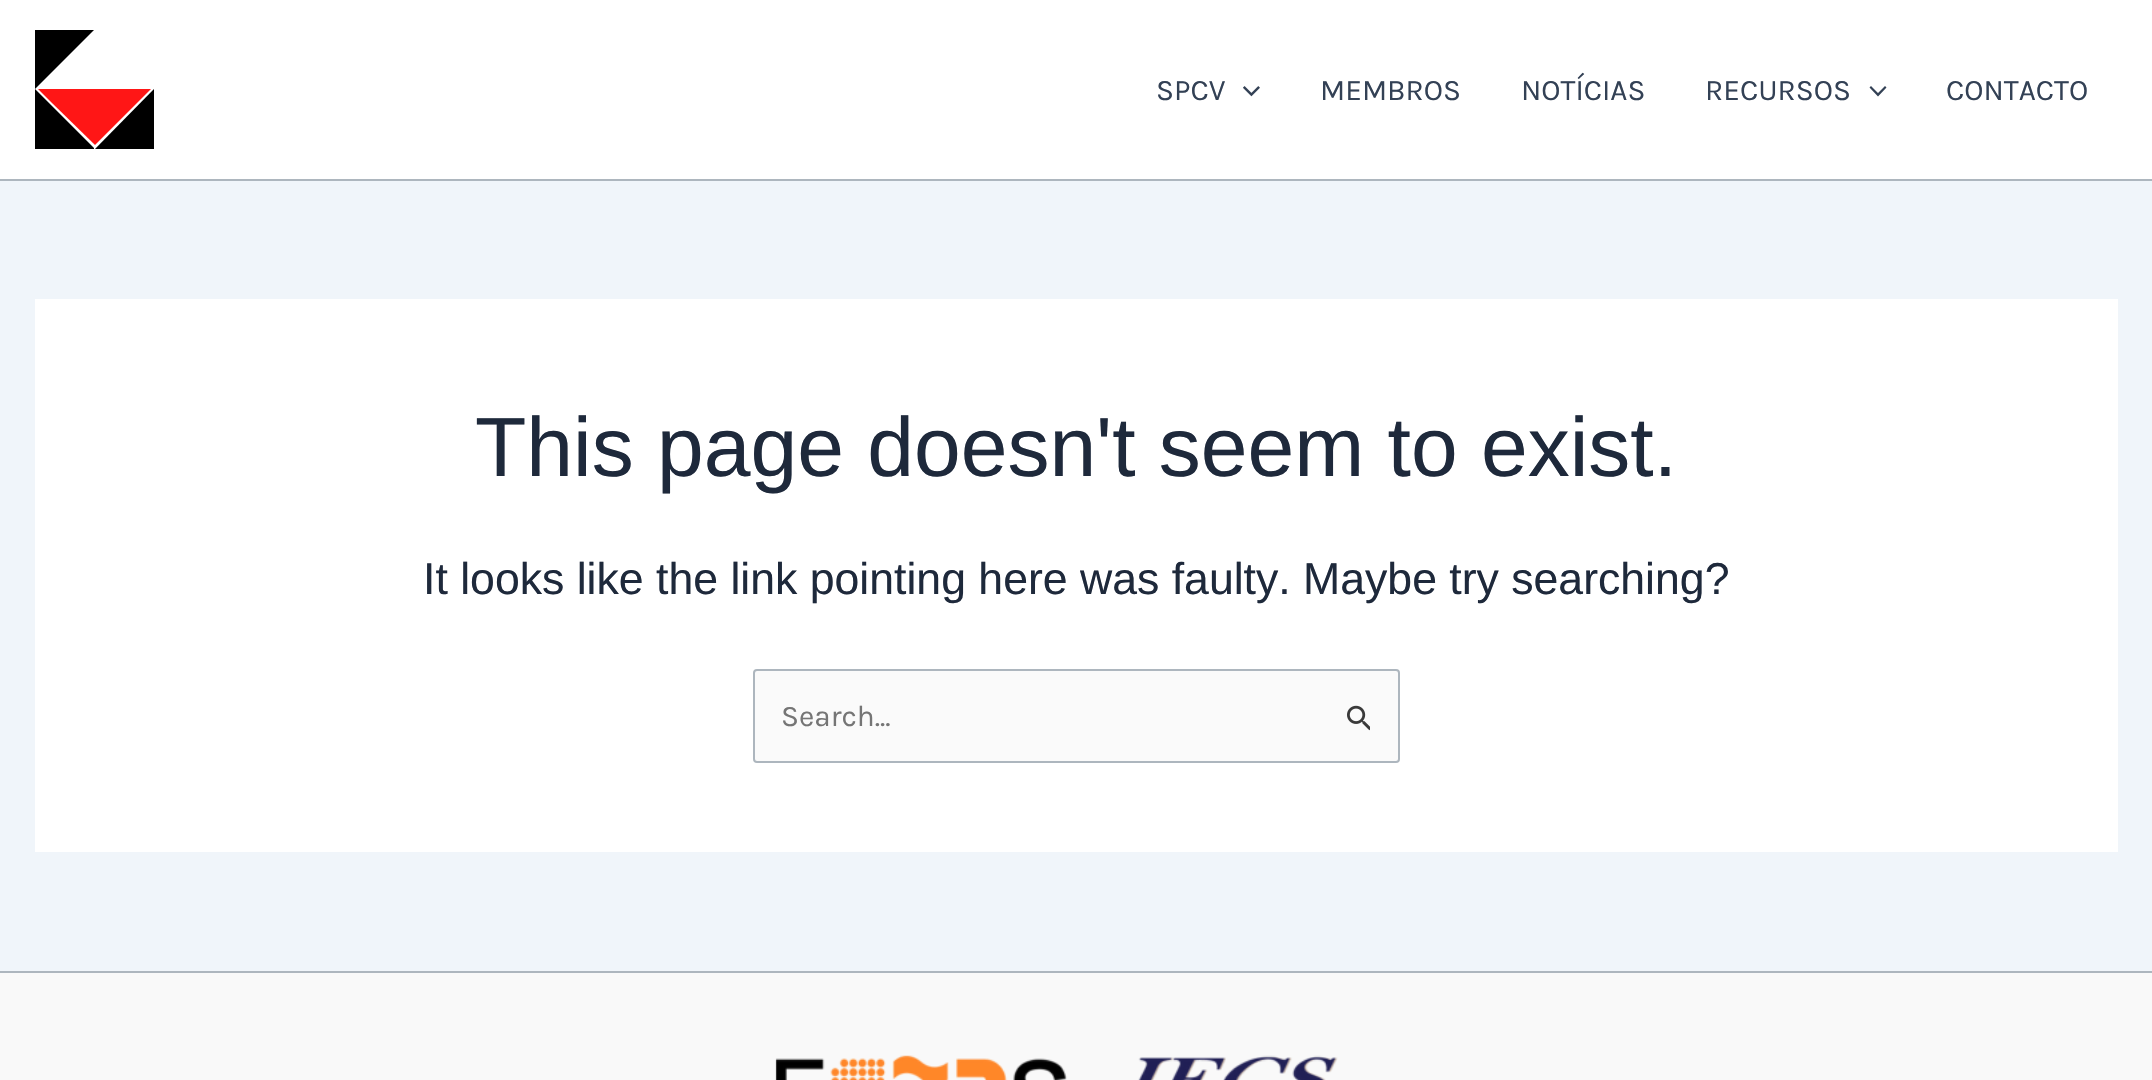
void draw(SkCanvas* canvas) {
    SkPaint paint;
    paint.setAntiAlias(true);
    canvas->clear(0xFFF0F5FA);
    paint.setColor(0xFFFFFFFF);
    canvas->drawRect(SkRect::MakeXYWH(0, 0, 2152, 179), paint);
    paint.setColor(0xFFADB6BE);
    canvas->drawRect(SkRect::MakeXYWH(0, 179, 2152, 2), paint);
    paint.setColor(0xFF000000);
    canvas->drawPath(SkPathBuilder().moveTo(35, 30).lineTo(94, 30).lineTo(35, 89).close().detach(), paint);
    canvas->drawPath(SkPathBuilder().moveTo(35, 89).lineTo(35, 149).lineTo(94, 149).lineTo(94, 148).close().detach(), paint);
    canvas->drawPath(SkPathBuilder().moveTo(154, 89).lineTo(95, 149).lineTo(154, 149).close().detach(), paint);
    paint.setColor(0xFFFF1616);
    canvas->drawPath(SkPathBuilder().moveTo(38, 89).lineTo(151, 89).lineTo(95, 145).lineTo(51, 102).close().detach(), paint);
    SkFont font1(fontMgr->matchFamilyStyle("Karla", SkFontStyle::Normal()), 29.75f);
    font1.setSubpixel(true);
    paint.setColor(0xFF334155);
    canvas->drawString("SPCV", 1156, 100, font1, paint);
    canvas->drawImageRect(SkImages::DeferredFromEncodedData(SkData::MakeFromFileName("img1.png")), SkRect::MakeXYWH(1243, 86, 17, 11), SkSamplingOptions());
    canvas->drawString("MEMBROS", 1320, 100, font1, paint);
    canvas->drawString("NOTÍCIAS", 1521, 100, font1, paint);
    canvas->drawString("RECURSOS", 1705, 100, font1, paint);
    canvas->drawPath(SkPathBuilder().moveTo(1869.5f, 87.5f).lineTo(1878, 96.5f).lineTo(1886.5f, 87.5f).lineTo(1885, 86).lineTo(1878, 93).lineTo(1871, 86).close().detach(), paint);
    canvas->drawString("CONTACTO", 1946, 100, font1, paint);
    paint.setColor(0xFFFFFFFF);
    canvas->drawRect(SkRect::MakeXYWH(35, 299, 2083, 553), paint);
    SkFont font2(fontMgr->matchFamilyStyle("Liberation Sans", SkFontStyle::Normal()), 84);
    font2.setSubpixel(true);
    paint.setColor(0xFF1E293B);
    canvas->drawString("This page doesn't seem to exist.", 475, 476, font2, paint);
    SkFont font3(fontMgr->matchFamilyStyle("Liberation Sans", SkFontStyle::Normal()), 44.6f);
    font3.setSubpixel(true);
    canvas->drawString("It looks like the link pointing here was faulty. Maybe try searching?", 423, 594, font3, paint);
    paint.setColor(0xFFFAFAFA);
    canvas->drawRoundRect(SkRect::MakeXYWH(754, 670, 645, 92), 3, 3, paint);
    paint.setStyle(SkPaint::kStroke_Style);
    paint.setStrokeWidth(2);
    paint.setColor(0xFFADB6BE);
    canvas->drawRoundRect(SkRect::MakeXYWH(754, 670, 645, 92), 3, 3, paint);
    paint.setStyle(SkPaint::kFill_Style);
    paint.setColor(0xFF757575);
    canvas->drawString("Search...", 781, 726, font1, paint);
    canvas->drawImageRect(SkImages::DeferredFromEncodedData(SkData::MakeFromFileName("img2.png")), SkRect::MakeXYWH(1347, 705, 23, 26), SkSamplingOptions());
    paint.setColor(0xFFF9F9F9);
    canvas->drawRect(SkRect::MakeXYWH(0, 973, 2152, 107), paint);
    paint.setColor(0xFFADB6BE);
    canvas->drawRect(SkRect::MakeXYWH(0, 971, 2152, 2), paint);
    canvas->drawImageRect(SkImages::DeferredFromEncodedData(SkData::MakeFromFileName("img3.png")), SkRect::MakeXYWH(775, 1055, 563, 25), SkSamplingOptions());
}
